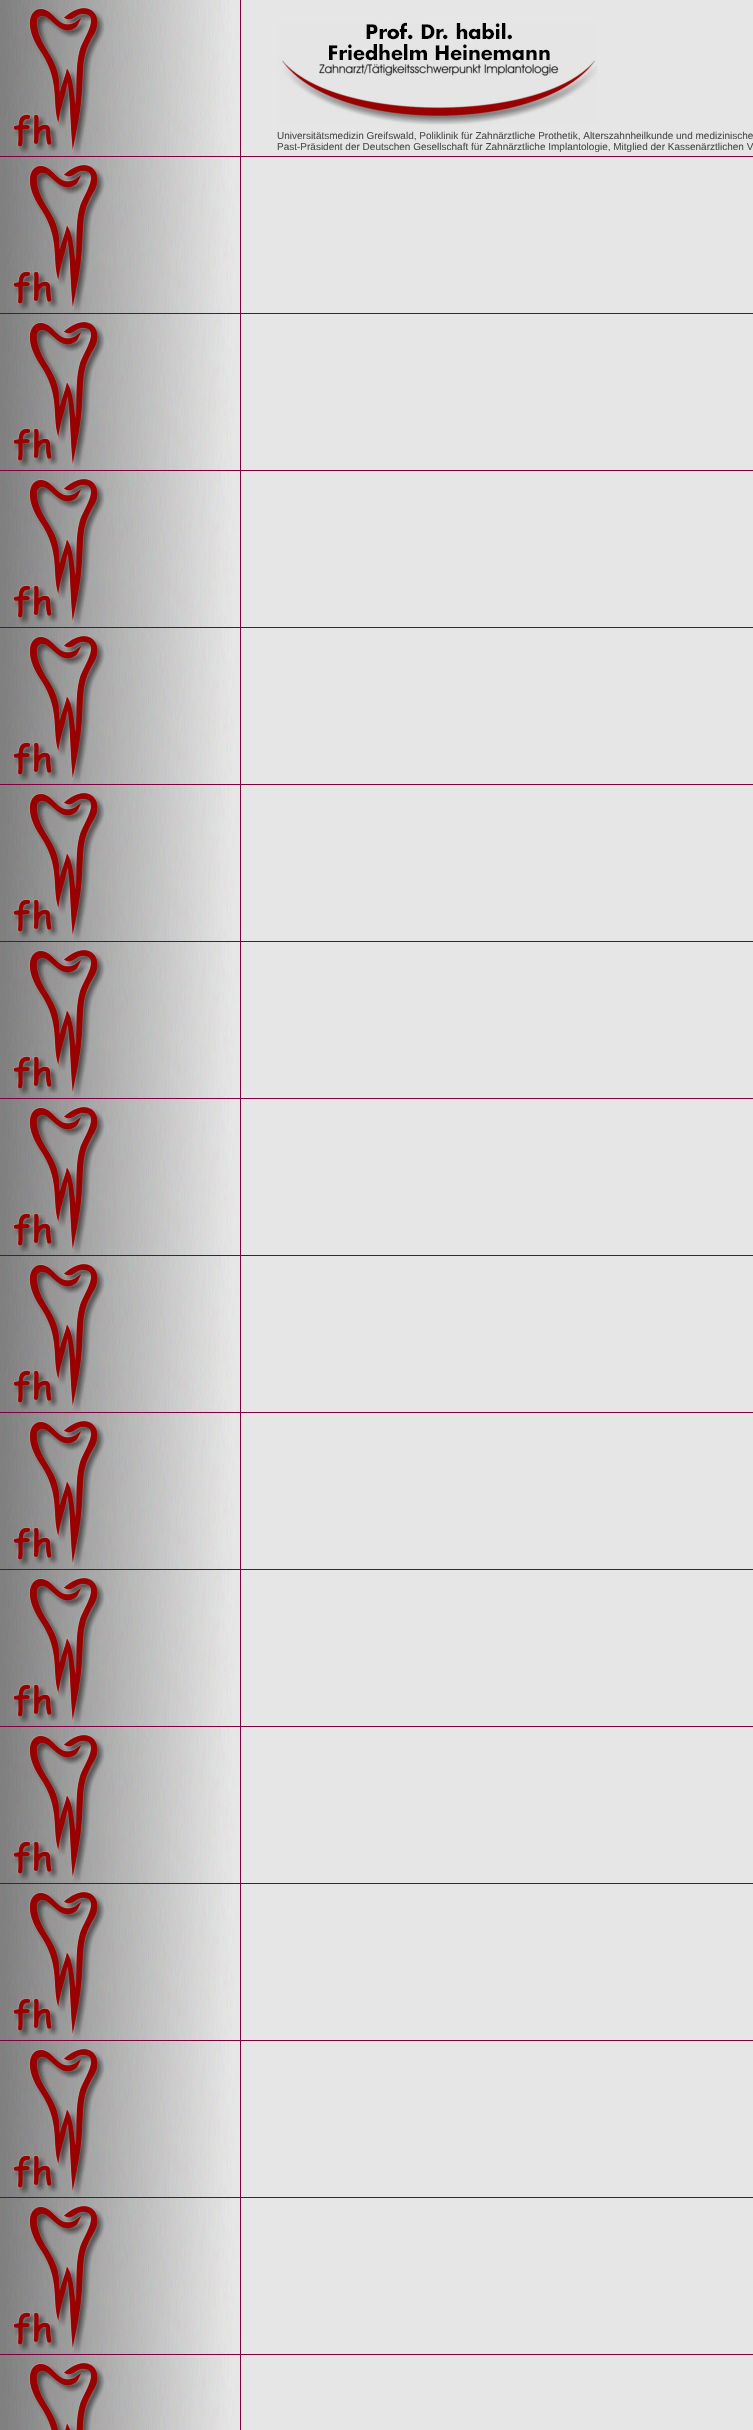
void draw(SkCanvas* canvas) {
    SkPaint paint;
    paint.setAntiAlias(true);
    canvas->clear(0xFFFFFFFF);
    canvas->drawImageRect(SkImages::DeferredFromEncodedData(SkData::MakeFromFileName("img1.png")), SkRect::MakeXYWH(0, 0, 753, 2430), SkSamplingOptions());
    canvas->drawImageRect(SkImages::DeferredFromEncodedData(SkData::MakeFromFileName("img2.png")), SkRect::MakeXYWH(277, 22, 321, 103), SkSamplingOptions());
    SkFont font1(fontMgr->matchFamilyStyle("Liberation Sans", SkFontStyle::Normal()), 10);
    font1.setSubpixel(true);
    paint.setColor(0xFF4D4D4D);
    canvas->drawString("Universitätsmedizin Greifswald, Poliklinik für Zahnärztliche Prothetik, Alterszahnheilkunde und medizinische", 277, 139, font1, paint);
    canvas->drawString("Past-Präsident der Deutschen Gesellschaft für Zahnärztliche Implantologie, Mitglied der Kassenärztlichen V", 277, 150, font1, paint);
}
